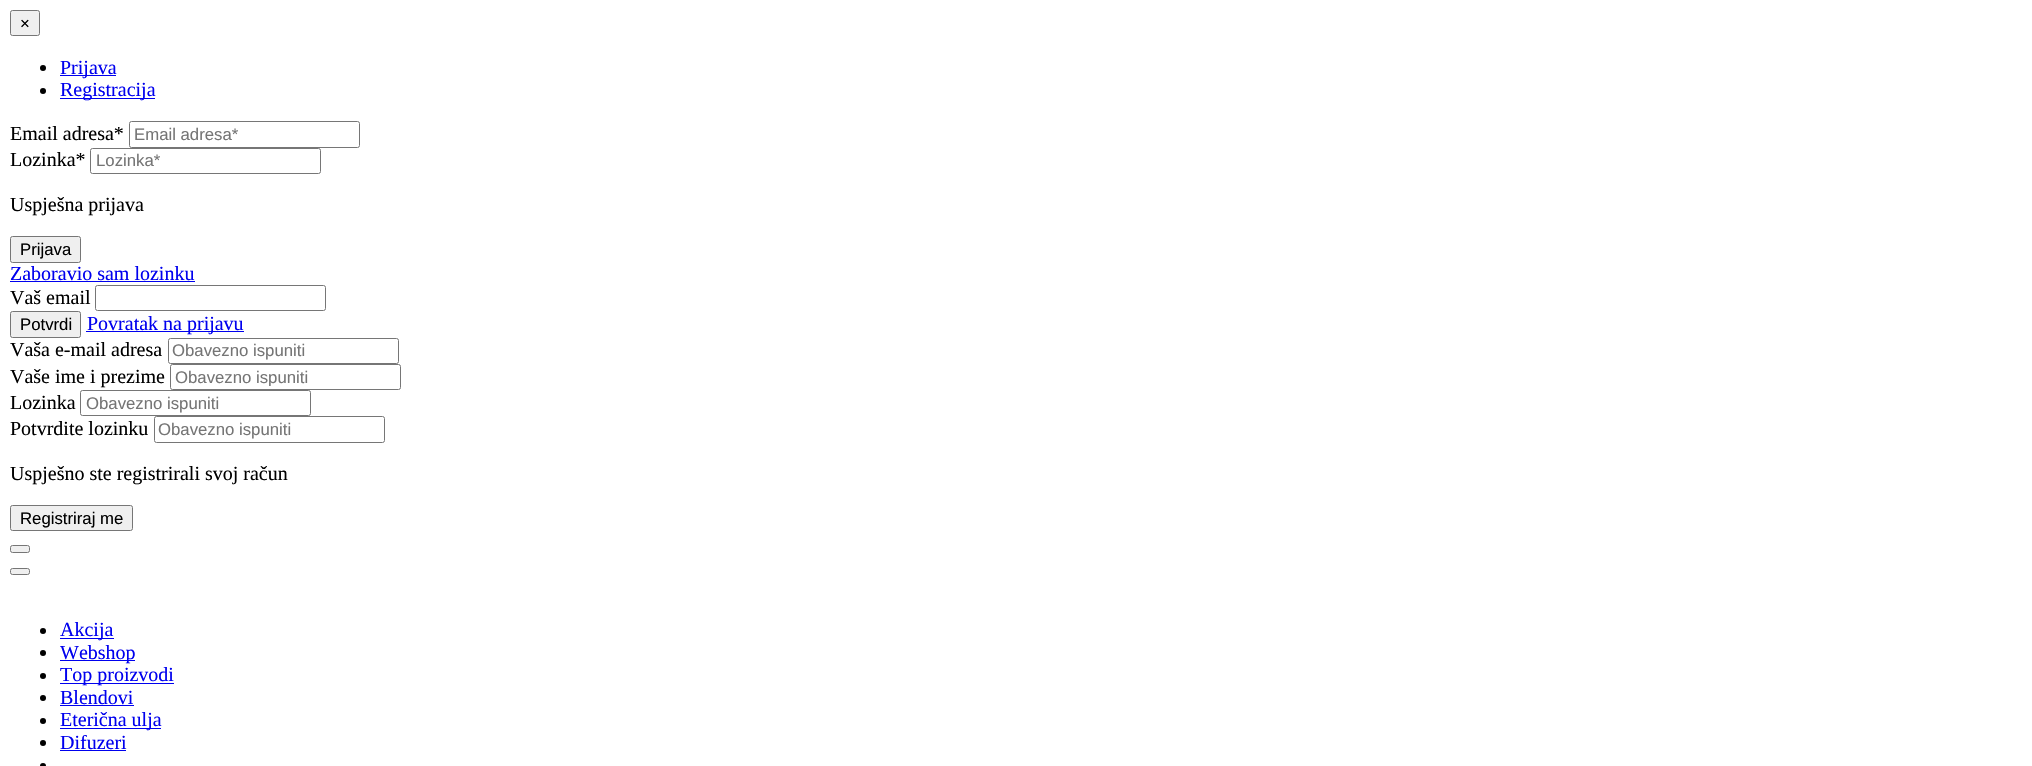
void draw(SkCanvas* canvas) {
    SkPaint paint;
    paint.setAntiAlias(true);
    canvas->clear(0xFFFFFFFF);
    paint.setColor(0xFFEFEFEF);
    canvas->drawRoundRect(SkRect::MakeXYWH(10.5f, 10.5f, 29, 25), 2, 2, paint);
    paint.setStyle(SkPaint::kStroke_Style);
    paint.setStrokeWidth(1);
    paint.setColor(0xFF767676);
    canvas->drawRoundRect(SkRect::MakeXYWH(10.5f, 10.5f, 29, 25), 2, 2, paint);
    SkFont font1(fontMgr->matchFamilyStyle("Liberation Sans", SkFontStyle::Normal()), 16.75f);
    font1.setSubpixel(true);
    paint.setStyle(SkPaint::kFill_Style);
    paint.setColor(0xFF000000);
    canvas->drawString("×", 20, 29, font1, paint);
    canvas->drawCircle(43, 68, 3, paint);
    paint.setColor(0xFF0000EE);
    canvas->drawRect(SkRect::MakeXYWH(60, 75, 56, 1), paint);
    SkFont font2(fontMgr->matchFamilyStyle("Liberation Serif", SkFontStyle::Normal()), 20);
    font2.setSubpixel(true);
    canvas->drawString("Prijava", 60, 74, font2, paint);
    paint.setColor(0xFF000000);
    canvas->drawCircle(43, 91, 3, paint);
    paint.setColor(0xFF0000EE);
    canvas->drawRect(SkRect::MakeXYWH(60, 98, 95, 1), paint);
    canvas->drawString("Registracija", 60, 96, font2, paint);
    paint.setColor(0xFF000000);
    canvas->drawString("Email adresa*", 10, 140, font2, paint);
    paint.setStyle(SkPaint::kStroke_Style);
    paint.setColor(0xFF767676);
    canvas->drawRoundRect(SkRect::MakeXYWH(129.5f, 121.5f, 230, 26), 2, 2, paint);
    paint.setStyle(SkPaint::kFill_Style);
    paint.setColor(0xFF757575);
    canvas->drawString("Email adresa*", 134, 140, font1, paint);
    paint.setColor(0xFF000000);
    canvas->drawString("Lozinka*", 10, 166, font2, paint);
    paint.setStyle(SkPaint::kStroke_Style);
    paint.setColor(0xFF767676);
    canvas->drawRoundRect(SkRect::MakeXYWH(90.5f, 148.5f, 230, 25), 2, 2, paint);
    paint.setStyle(SkPaint::kFill_Style);
    paint.setColor(0xFF757575);
    canvas->drawString("Lozinka*", 96, 166, font1, paint);
    paint.setColor(0xFF000000);
    canvas->drawString("Uspješna prijava", 10, 211, font2, paint);
    paint.setColor(0xFFEFEFEF);
    canvas->drawRoundRect(SkRect::MakeXYWH(10.5f, 236.5f, 70, 26), 2, 2, paint);
    paint.setStyle(SkPaint::kStroke_Style);
    paint.setColor(0xFF767676);
    canvas->drawRoundRect(SkRect::MakeXYWH(10.5f, 236.5f, 70, 26), 2, 2, paint);
    paint.setStyle(SkPaint::kFill_Style);
    paint.setColor(0xFF000000);
    canvas->drawString("Prijava", 20, 255, font1, paint);
    paint.setColor(0xFF0000EE);
    canvas->drawString("Zaboravio sam lozinku", 10, 280, font2, paint);
    canvas->drawRect(SkRect::MakeXYWH(10, 281, 185, 1), paint);
    paint.setColor(0xFF000000);
    canvas->drawString("Vaš email", 10, 304, font2, paint);
    paint.setStyle(SkPaint::kStroke_Style);
    paint.setColor(0xFF767676);
    canvas->drawRoundRect(SkRect::MakeXYWH(95.5f, 285.5f, 230, 25), 2, 2, paint);
    paint.setStyle(SkPaint::kFill_Style);
    paint.setColor(0xFFEFEFEF);
    canvas->drawRoundRect(SkRect::MakeXYWH(10.5f, 311.5f, 70, 26), 2, 2, paint);
    paint.setStyle(SkPaint::kStroke_Style);
    paint.setColor(0xFF767676);
    canvas->drawRoundRect(SkRect::MakeXYWH(10.5f, 311.5f, 70, 26), 2, 2, paint);
    paint.setStyle(SkPaint::kFill_Style);
    paint.setColor(0xFF000000);
    canvas->drawString("Potvrdi", 20, 330, font1, paint);
    paint.setColor(0xFF0000EE);
    canvas->drawRect(SkRect::MakeXYWH(86, 331, 158, 1), paint);
    canvas->drawString("Povratak na prijavu", 87, 330, font2, paint);
    paint.setColor(0xFF000000);
    canvas->drawString("Vaša e-mail adresa", 10, 356, font2, paint);
    paint.setStyle(SkPaint::kStroke_Style);
    paint.setColor(0xFF767676);
    canvas->drawRoundRect(SkRect::MakeXYWH(168.5f, 338.5f, 230, 25), 2, 2, paint);
    paint.setStyle(SkPaint::kFill_Style);
    paint.setColor(0xFF757575);
    canvas->drawString("Obavezno ispuniti", 172, 356, font1, paint);
    paint.setColor(0xFF000000);
    canvas->drawString("Vaše ime i prezime", 10, 383, font2, paint);
    paint.setStyle(SkPaint::kStroke_Style);
    paint.setColor(0xFF767676);
    canvas->drawRoundRect(SkRect::MakeXYWH(170.5f, 364.5f, 230, 25), 2, 2, paint);
    canvas->save();
    canvas->clipRect(SkRect::MakeXYWH(175, 368, 221, 18));
    paint.setStyle(SkPaint::kFill_Style);
    paint.setColor(0xFF757575);
    canvas->drawString("Obavezno ispuniti", 175, 383, font1, paint);
    canvas->restore();
    paint.setColor(0xFF000000);
    canvas->drawString("Lozinka", 10, 409, font2, paint);
    paint.setStyle(SkPaint::kStroke_Style);
    paint.setColor(0xFF767676);
    canvas->drawRoundRect(SkRect::MakeXYWH(80.5f, 390.5f, 230, 25), 2, 2, paint);
    paint.setStyle(SkPaint::kFill_Style);
    paint.setColor(0xFF757575);
    canvas->drawString("Obavezno ispuniti", 86, 409, font1, paint);
    paint.setColor(0xFF000000);
    canvas->drawString("Potvrdite lozinku", 10, 435, font2, paint);
    paint.setStyle(SkPaint::kStroke_Style);
    paint.setColor(0xFF767676);
    canvas->drawRoundRect(SkRect::MakeXYWH(154.5f, 416.5f, 230, 26), 2, 2, paint);
    paint.setStyle(SkPaint::kFill_Style);
    paint.setColor(0xFF757575);
    canvas->drawString("Obavezno ispuniti", 158, 435, font1, paint);
    paint.setColor(0xFF000000);
    canvas->drawString("Uspješno ste registrirali svoj račun", 10, 480, font2, paint);
    paint.setColor(0xFFEFEFEF);
    canvas->drawRoundRect(SkRect::MakeXYWH(10.5f, 505.5f, 122, 25), 2, 2, paint);
    paint.setStyle(SkPaint::kStroke_Style);
    paint.setColor(0xFF767676);
    canvas->drawRoundRect(SkRect::MakeXYWH(10.5f, 505.5f, 122, 25), 2, 2, paint);
    paint.setStyle(SkPaint::kFill_Style);
    paint.setColor(0xFF000000);
    canvas->drawString("Registriraj me", 20, 524, font1, paint);
    paint.setColor(0xFFEFEFEF);
    canvas->drawRoundRect(SkRect::MakeXYWH(10.5f, 545.5f, 19, 7), 2, 2, paint);
    paint.setStyle(SkPaint::kStroke_Style);
    paint.setColor(0xFF767676);
    canvas->drawRoundRect(SkRect::MakeXYWH(10.5f, 545.5f, 19, 7), 2, 2, paint);
    paint.setStyle(SkPaint::kFill_Style);
    paint.setColor(0xFFEFEFEF);
    canvas->drawRoundRect(SkRect::MakeXYWH(10.5f, 568.5f, 19, 6), 2, 2, paint);
    paint.setStyle(SkPaint::kStroke_Style);
    paint.setColor(0xFF767676);
    canvas->drawRoundRect(SkRect::MakeXYWH(10.5f, 568.5f, 19, 6), 2, 2, paint);
    paint.setStyle(SkPaint::kFill_Style);
    paint.setColor(0xFF000000);
    canvas->drawCircle(43, 631, 3, paint);
    paint.setColor(0xFF0000EE);
    canvas->drawRect(SkRect::MakeXYWH(60, 638, 54, 1), paint);
    canvas->drawString("Akcija", 60, 636, font2, paint);
    paint.setColor(0xFF000000);
    canvas->drawCircle(43, 653, 3, paint);
    paint.setColor(0xFF0000EE);
    canvas->drawRect(SkRect::MakeXYWH(60, 660, 75, 1), paint);
    canvas->drawString("Webshop", 60, 659, font2, paint);
    paint.setColor(0xFF000000);
    canvas->drawCircle(43, 676, 3, paint);
    paint.setColor(0xFF0000EE);
    canvas->drawRect(SkRect::MakeXYWH(60, 683, 114, 1), paint);
    canvas->drawString("Top proizvodi", 60, 681, font2, paint);
    paint.setColor(0xFF000000);
    canvas->drawCircle(43, 698, 3, paint);
    paint.setColor(0xFF0000EE);
    canvas->drawString("Blendovi", 60, 704, font2, paint);
    canvas->drawRect(SkRect::MakeXYWH(60, 705, 74, 1), paint);
    paint.setColor(0xFF000000);
    canvas->drawCircle(43, 721, 3, paint);
    paint.setColor(0xFF0000EE);
    canvas->drawRect(SkRect::MakeXYWH(60, 728, 101, 1), paint);
    canvas->drawString("Eterična ulja", 60, 726, font2, paint);
    paint.setColor(0xFF000000);
    canvas->drawCircle(43, 743, 3, paint);
    paint.setColor(0xFF0000EE);
    canvas->drawString("Difuzeri", 60, 749, font2, paint);
    canvas->drawRect(SkRect::MakeXYWH(60, 750, 66, 1), paint);
    paint.setColor(0xFF000000);
    canvas->drawCircle(43, 766, 3, paint);
}
